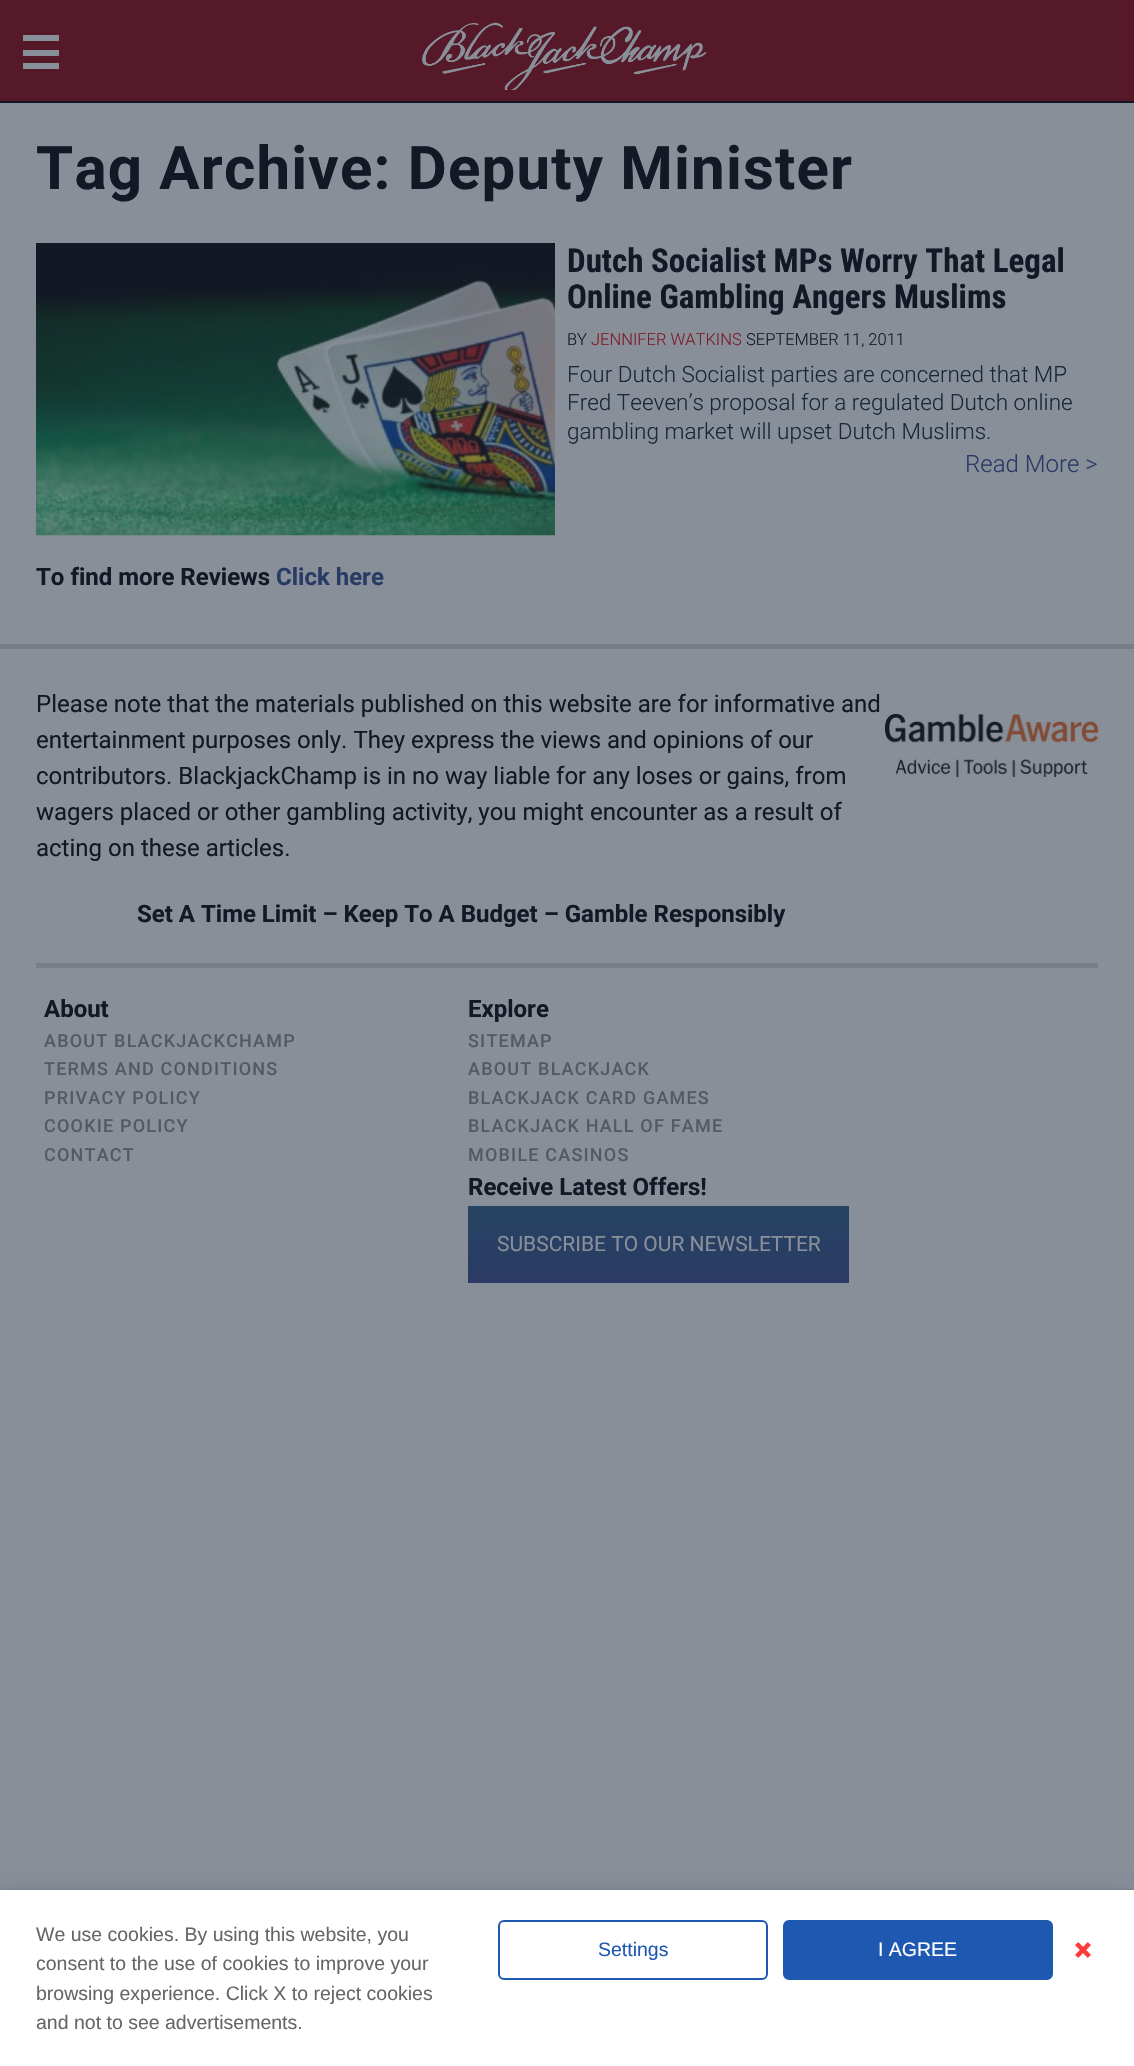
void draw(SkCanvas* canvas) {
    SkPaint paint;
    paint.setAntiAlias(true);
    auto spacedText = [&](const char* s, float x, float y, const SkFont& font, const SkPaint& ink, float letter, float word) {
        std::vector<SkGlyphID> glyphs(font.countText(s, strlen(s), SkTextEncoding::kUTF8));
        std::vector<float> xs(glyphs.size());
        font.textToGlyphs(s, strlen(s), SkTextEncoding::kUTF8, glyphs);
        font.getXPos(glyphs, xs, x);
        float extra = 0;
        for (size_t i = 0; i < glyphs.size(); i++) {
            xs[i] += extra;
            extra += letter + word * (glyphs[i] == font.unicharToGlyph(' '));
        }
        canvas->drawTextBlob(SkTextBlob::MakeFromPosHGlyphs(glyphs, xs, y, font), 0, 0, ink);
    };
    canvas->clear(0xFF898F99);
    paint.setColor(0xFF551929);
    canvas->drawRect(SkRect::MakeXYWH(0, 0, 1134, 101), paint);
    paint.setColor(0xFF131924);
    canvas->drawRect(SkRect::MakeXYWH(0, 101, 1134, 2), paint);
    paint.setColor(0xFF898F99);
    canvas->drawRect(SkRect::MakeXYWH(23, 50, 36, 6), paint);
    canvas->drawRect(SkRect::MakeXYWH(23, 35, 36, 6), paint);
    canvas->drawRect(SkRect::MakeXYWH(23, 63, 36, 6), paint);
    canvas->drawImageRect(SkImages::DeferredFromEncodedData(SkData::MakeFromFileName("img1.png")), SkRect::MakeXYWH(422, 22, 285, 68), SkSamplingOptions());
    SkFont font1(fontMgr->matchFamilyStyle("Roboto", SkFontStyle::Bold()), 60);
    font1.setSubpixel(true);
    paint.setColor(0xFF131924);
    spacedText("Tag Archive: Deputy Minister", 36, 189, font1, paint, 1.2f, 0);
    canvas->drawImageRect(SkImages::DeferredFromEncodedData(SkData::MakeFromFileName("img2.png")), SkRect::MakeXYWH(36, 243, 519, 293), SkSamplingOptions());
    SkFont font2(fontMgr->matchFamilyStyle("Roboto Condensed", SkFontStyle::Bold()), 33);
    font2.setSubpixel(true);
    canvas->drawString("Dutch Socialist MPs Worry That Legal", 567, 272, font2, paint);
    canvas->drawString("Online Gambling Angers Muslims", 567, 308, font2, paint);
    SkFont font3(fontMgr->matchFamilyStyle("Roboto", SkFontStyle(300, SkFontStyle::kNormal_Width, SkFontStyle::kUpright_Slant)), 16.5f);
    font3.setSubpixel(true);
    canvas->drawString("BY", 567, 345, font3, paint);
    paint.setColor(0xFF7B1B28);
    canvas->drawString("JENNIFER WATKINS", 591, 345, font3, paint);
    paint.setColor(0xFF131924);
    canvas->drawString("SEPTEMBER 11, 2011", 746, 345, font3, paint);
    SkFont font4(fontMgr->matchFamilyStyle("Roboto", SkFontStyle(300, SkFontStyle::kNormal_Width, SkFontStyle::kUpright_Slant)), 22.5f);
    font4.setSubpixel(true);
    paint.setColor(0xFF192838);
    canvas->drawString("Four Dutch Socialist parties are concerned that MP", 567, 382, font4, paint);
    canvas->drawString("Fred Teeven’s proposal for a regulated Dutch online", 567, 410, font4, paint);
    canvas->drawString("gambling market will upset Dutch Muslims.", 567, 439, font4, paint);
    SkFont font5(fontMgr->matchFamilyStyle("Roboto", SkFontStyle(300, SkFontStyle::kNormal_Width, SkFontStyle::kUpright_Slant)), 24);
    font5.setSubpixel(true);
    paint.setColor(0xFF283B65);
    canvas->drawString("Read More >", 965, 472, font5, paint);
    SkFont font6(fontMgr->matchFamilyStyle("Roboto", SkFontStyle::Bold()), 24);
    font6.setSubpixel(true);
    paint.setColor(0xFF131924);
    canvas->drawString("To find more Reviews", 36, 585, font6, paint);
    paint.setColor(0xFF283B65);
    canvas->drawString("Click here", 276, 585, font6, paint);
    paint.setColor(0xFF777D87);
    canvas->drawRect(SkRect::MakeXYWH(0, 644, 1134, 5), paint);
    paint.setColor(0xFF797F89);
    canvas->drawRect(SkRect::MakeXYWH(36, 963, 1062, 5), paint);
    SkFont font7(fontMgr->matchFamilyStyle("Roboto", SkFontStyle::Normal()), 24);
    font7.setSubpixel(true);
    paint.setColor(0xFF131924);
    canvas->drawString("Please note that the materials published on this website are for informative and", 36, 712, font7, paint);
    canvas->drawString("entertainment purposes only. They express the views and opinions of our", 36, 748, font7, paint);
    canvas->drawString("contributors. BlackjackChamp is in no way liable for any loses or gains, from", 36, 784, font7, paint);
    canvas->drawString("wagers placed or other gambling activity, you might encounter as a result of", 36, 820, font7, paint);
    canvas->drawString("acting on these articles.", 36, 856, font7, paint);
    canvas->drawString("Set A Time Limit – Keep To A Budget – Gamble Responsibly", 137, 922, font6, paint);
    canvas->drawImageRect(SkImages::DeferredFromEncodedData(SkData::MakeFromFileName("img3.png")), SkRect::MakeXYWH(885, 714, 213, 63), SkSamplingOptions());
    canvas->drawString("About", 44, 1017, font6, paint);
    SkFont font8(fontMgr->matchFamilyStyle("Roboto", SkFontStyle(500, SkFontStyle::kNormal_Width, SkFontStyle::kUpright_Slant)), 18);
    font8.setSubpixel(true);
    paint.setColor(0xFF555964);
    spacedText("ABOUT BLACKJACKCHAMP", 44, 1047, font8, paint, 1.2f, 0);
    spacedText("TERMS AND CONDITIONS", 44, 1075, font8, paint, 1.2f, 0);
    spacedText("PRIVACY POLICY", 44, 1104, font8, paint, 1.2f, 0);
    spacedText("COOKIE POLICY", 44, 1132, font8, paint, 1.2f, 0);
    spacedText("CONTACT", 44, 1161, font8, paint, 1.2f, 0);
    paint.setColor(0xFF131924);
    canvas->drawString("Explore", 468, 1017, font6, paint);
    paint.setColor(0xFF555964);
    spacedText("SITEMAP", 468, 1047, font8, paint, 1.2f, 0);
    spacedText("ABOUT BLACKJACK", 468, 1075, font8, paint, 1.2f, 0);
    spacedText("BLACKJACK CARD GAMES", 468, 1104, font8, paint, 1.2f, 0);
    spacedText("BLACKJACK HALL OF FAME", 468, 1132, font8, paint, 1.2f, 0);
    spacedText("MOBILE CASINOS", 468, 1161, font8, paint, 1.2f, 0);
    paint.setColor(0xFF131924);
    canvas->drawString("Receive Latest Offers!", 468, 1195, font6, paint);
    {
        const SkColor colors[] = {0xFF254362, 0xFF2B3B64};
        const float stops[] = {0, 1};
        const SkPoint ends[] = {{659, 1206}, {659, 1283}};
        paint.setShader(SkGradientShader::MakeLinear(ends, colors, stops, 2, SkTileMode::kClamp));
        paint.setAlpha(255);
    }
    canvas->drawRect(SkRect::MakeXYWH(468, 1206, 381, 77), paint);
    SkFont font9(fontMgr->matchFamilyStyle("Roboto", SkFontStyle::Normal()), 21);
    font9.setSubpixel(true);
    paint.setShader(nullptr);
    paint.setColor(0xFF898F99);
    canvas->drawString("SUBSCRIBE TO OUR NEWSLETTER", 497, 1251, font9, paint);
    paint.setColor(0x4F242F42);
    paint.setMaskFilter(SkMaskFilter::MakeBlur(kNormal_SkBlurStyle, 15));
    canvas->drawRect(SkRect::MakeXYWH(-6, 1899, 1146, 159), paint);
    paint.setMaskFilter(nullptr);
    paint.setStyle(SkPaint::kStroke_Style);
    paint.setStrokeWidth(2);
    paint.setColor(0x14242F42);
    canvas->drawRect(SkRect::MakeXYWH(-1, 1890, 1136, 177), paint);
    paint.setStyle(SkPaint::kFill_Style);
    paint.setColor(0xFFFFFFFF);
    canvas->drawRect(SkRect::MakeXYWH(0, 1890, 1134, 176), paint);
    SkFont font10(fontMgr->matchFamilyStyle("Liberation Sans", SkFontStyle::Normal()), 19.5f);
    font10.setSubpixel(true);
    paint.setColor(0xFF666666);
    canvas->drawString("We use cookies. By using this website, you", 36, 1941, font10, paint);
    canvas->drawString("consent to the use of cookies to improve your", 36, 1970, font10, paint);
    canvas->drawString("browsing experience. Click X to reject cookies", 36, 2000, font10, paint);
    canvas->drawString("and not to see advertisements.", 36, 2029, font10, paint);
    paint.setStyle(SkPaint::kStroke_Style);
    paint.setColor(0xFF1E58B1);
    canvas->drawRoundRect(SkRect::MakeXYWH(499, 1921, 268, 58), 5, 5, paint);
    paint.setStyle(SkPaint::kFill_Style);
    canvas->drawString("Settings", 598, 1956, font10, paint);
    canvas->drawRoundRect(SkRect::MakeXYWH(784, 1921, 268, 58), 5, 5, paint);
    paint.setStyle(SkPaint::kStroke_Style);
    canvas->drawRoundRect(SkRect::MakeXYWH(784, 1921, 268, 58), 5, 5, paint);
    paint.setStyle(SkPaint::kFill_Style);
    paint.setColor(0xFFFFFFFF);
    canvas->drawString("I AGREE", 878, 1956, font10, paint);
    canvas->drawImageRect(SkImages::DeferredFromEncodedData(SkData::MakeFromFileName("img4.png")), SkRect::MakeXYWH(1075, 1942, 16, 16), SkSamplingOptions());
}
